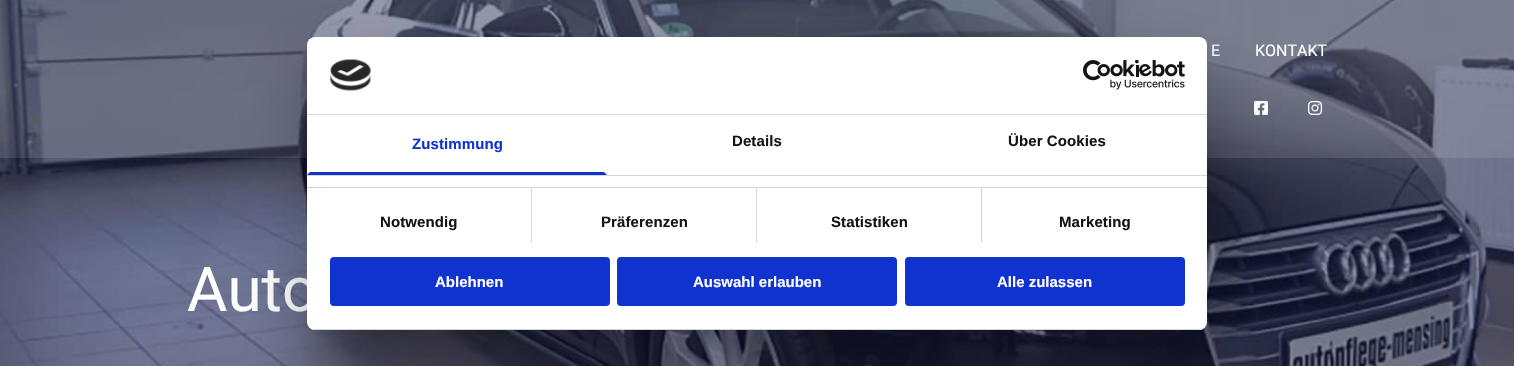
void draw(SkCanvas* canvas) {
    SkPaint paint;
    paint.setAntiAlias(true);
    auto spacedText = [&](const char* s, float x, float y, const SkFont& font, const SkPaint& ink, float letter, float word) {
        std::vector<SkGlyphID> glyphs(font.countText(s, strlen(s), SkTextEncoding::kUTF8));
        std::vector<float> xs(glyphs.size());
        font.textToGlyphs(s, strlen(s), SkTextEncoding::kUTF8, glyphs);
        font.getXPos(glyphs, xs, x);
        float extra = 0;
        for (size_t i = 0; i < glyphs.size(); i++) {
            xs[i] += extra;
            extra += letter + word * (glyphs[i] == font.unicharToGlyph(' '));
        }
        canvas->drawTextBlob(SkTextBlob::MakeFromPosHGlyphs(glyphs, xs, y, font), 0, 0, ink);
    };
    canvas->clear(0xFFFFFFFF);
    canvas->drawImageRect(SkImages::DeferredFromEncodedData(SkData::MakeFromFileName("img3.png")), SkRect::MakeXYWH(0, 0, 1514, 366), SkSamplingOptions());
    paint.setColor(0x1AFFFFFF);
    canvas->drawRect(SkRect::MakeXYWH(0, 0, 1514, 158), paint);
    SkFont font1(fontMgr->matchFamilyStyle("Roboto", SkFontStyle::Normal()), 16);
    font1.setSubpixel(true);
    paint.setColor(0xFFFFFFFF);
    canvas->drawString("E", 1211, 56, font1, paint);
    canvas->drawString("KONTAKT", 1255, 56, font1, paint);
    canvas->drawImageRect(SkImages::DeferredFromEncodedData(SkData::MakeFromFileName("img1.png")), SkRect::MakeXYWH(1254, 101, 14, 14), SkSamplingOptions());
    canvas->drawImageRect(SkImages::DeferredFromEncodedData(SkData::MakeFromFileName("img2.png")), SkRect::MakeXYWH(1308, 101, 14, 14), SkSamplingOptions());
    SkFont font2(fontMgr->matchFamilyStyle("Roboto", SkFontStyle::Normal()), 62);
    font2.setSubpixel(true);
    canvas->drawString("Auto", 187, 311, font2, paint);
    paint.setColor(0x4D000000);
    paint.setMaskFilter(SkMaskFilter::MakeBlur(kNormal_SkBlurStyle, 34));
    canvas->drawRoundRect(SkRect::MakeXYWH(307, 69, 900, 293), 8, 8, paint);
    paint.setMaskFilter(nullptr);
    paint.setColor(0xFFFFFFFF);
    canvas->drawRoundRect(SkRect::MakeXYWH(307, 37, 900, 293), 8, 8, paint);
    paint.setColor(0xFFD6D6D6);
    canvas->drawRect(SkRect::MakeXYWH(307, 114, 900, 1), paint);
    canvas->drawImageRect(SkImages::DeferredFromEncodedData(SkData::MakeFromFileName("img4.png")), SkRect::MakeXYWH(329, 59, 43, 32), SkSamplingOptions());
    canvas->drawImageRect(SkImages::DeferredFromEncodedData(SkData::MakeFromFileName("img5.png")), SkRect::MakeXYWH(1083, 60, 102, 30), SkSamplingOptions());
    canvas->drawRect(SkRect::MakeXYWH(307, 175, 900, 1), paint);
    paint.setColor(0xFF1032CF);
    canvas->drawPath(SkPathBuilder().moveTo(607, 175).lineTo(307, 175).lineTo(310, 172).lineTo(604, 172).close().detach(), paint);
    SkFont font3(fontMgr->matchFamilyStyle("Liberation Sans", SkFontStyle::Bold()), 15);
    font3.setSubpixel(true);
    spacedText("Zustimmung", 412, 149, font3, paint, 0.1f, 0);
    paint.setColor(0xFF141414);
    spacedText("Details", 732, 146, font3, paint, 0.1f, 0);
    spacedText("Über Cookies", 1008, 146, font3, paint, 0.1f, 0);
    paint.setColor(0xFFD6D6D6);
    canvas->drawRect(SkRect::MakeXYWH(307, 187, 900, 1), paint);
    canvas->drawRect(SkRect::MakeXYWH(531, 188, 1, 54), paint);
    paint.setColor(0xFF141414);
    spacedText("Notwendig", 380, 227, font3, paint, 0.1f, 0);
    paint.setColor(0xFFD6D6D6);
    canvas->drawRect(SkRect::MakeXYWH(756, 188, 1, 54), paint);
    paint.setColor(0xFF141414);
    spacedText("Präferenzen", 601, 227, font3, paint, 0.1f, 0);
    paint.setColor(0xFFD6D6D6);
    canvas->drawRect(SkRect::MakeXYWH(981, 188, 1, 54), paint);
    paint.setColor(0xFF141414);
    spacedText("Statistiken", 831, 227, font3, paint, 0.1f, 0);
    spacedText("Marketing", 1059, 227, font3, paint, 0.1f, 0);
    canvas->save();
    canvas->clipPath(SkPathBuilder().moveTo(315, 37).lineTo(1199, 37).cubicTo(1203.5f, 37, 1207, 40.5f, 1207, 45).lineTo(1207, 322).cubicTo(1207, 326.5f, 1203.5f, 330, 1199, 330).lineTo(315, 330).cubicTo(310.5f, 330, 307, 326.5f, 307, 322).lineTo(307, 45).cubicTo(307, 40.5f, 310.5f, 37, 315, 37).close().detach(), true);
    paint.setColor(0xFFD6D6D6);
    canvas->drawRect(SkRect::MakeXYWH(307, 329, 900, 1), paint);
    canvas->restore();
    paint.setColor(0xFF1032CF);
    canvas->drawRoundRect(SkRect::MakeXYWH(331, 258, 278, 47), 3, 3, paint);
    paint.setStyle(SkPaint::kStroke_Style);
    paint.setStrokeWidth(2);
    canvas->drawRoundRect(SkRect::MakeXYWH(331, 258, 278, 47), 3, 3, paint);
    paint.setStyle(SkPaint::kFill_Style);
    paint.setColor(0xFFFFFFFF);
    canvas->drawString("Ablehnen", 435, 287, font3, paint);
    paint.setColor(0xFF1032CF);
    canvas->drawRoundRect(SkRect::MakeXYWH(618, 258, 278, 47), 3, 3, paint);
    paint.setStyle(SkPaint::kStroke_Style);
    canvas->drawRoundRect(SkRect::MakeXYWH(618, 258, 278, 47), 3, 3, paint);
    paint.setStyle(SkPaint::kFill_Style);
    paint.setColor(0xFFFFFFFF);
    canvas->drawString("Auswahl erlauben", 693, 287, font3, paint);
    paint.setColor(0xFF1032CF);
    canvas->drawRoundRect(SkRect::MakeXYWH(906, 258, 278, 47), 3, 3, paint);
    paint.setStyle(SkPaint::kStroke_Style);
    canvas->drawRoundRect(SkRect::MakeXYWH(906, 258, 278, 47), 3, 3, paint);
    paint.setStyle(SkPaint::kFill_Style);
    paint.setColor(0xFFFFFFFF);
    canvas->drawString("Alle zulassen", 997, 287, font3, paint);
}
